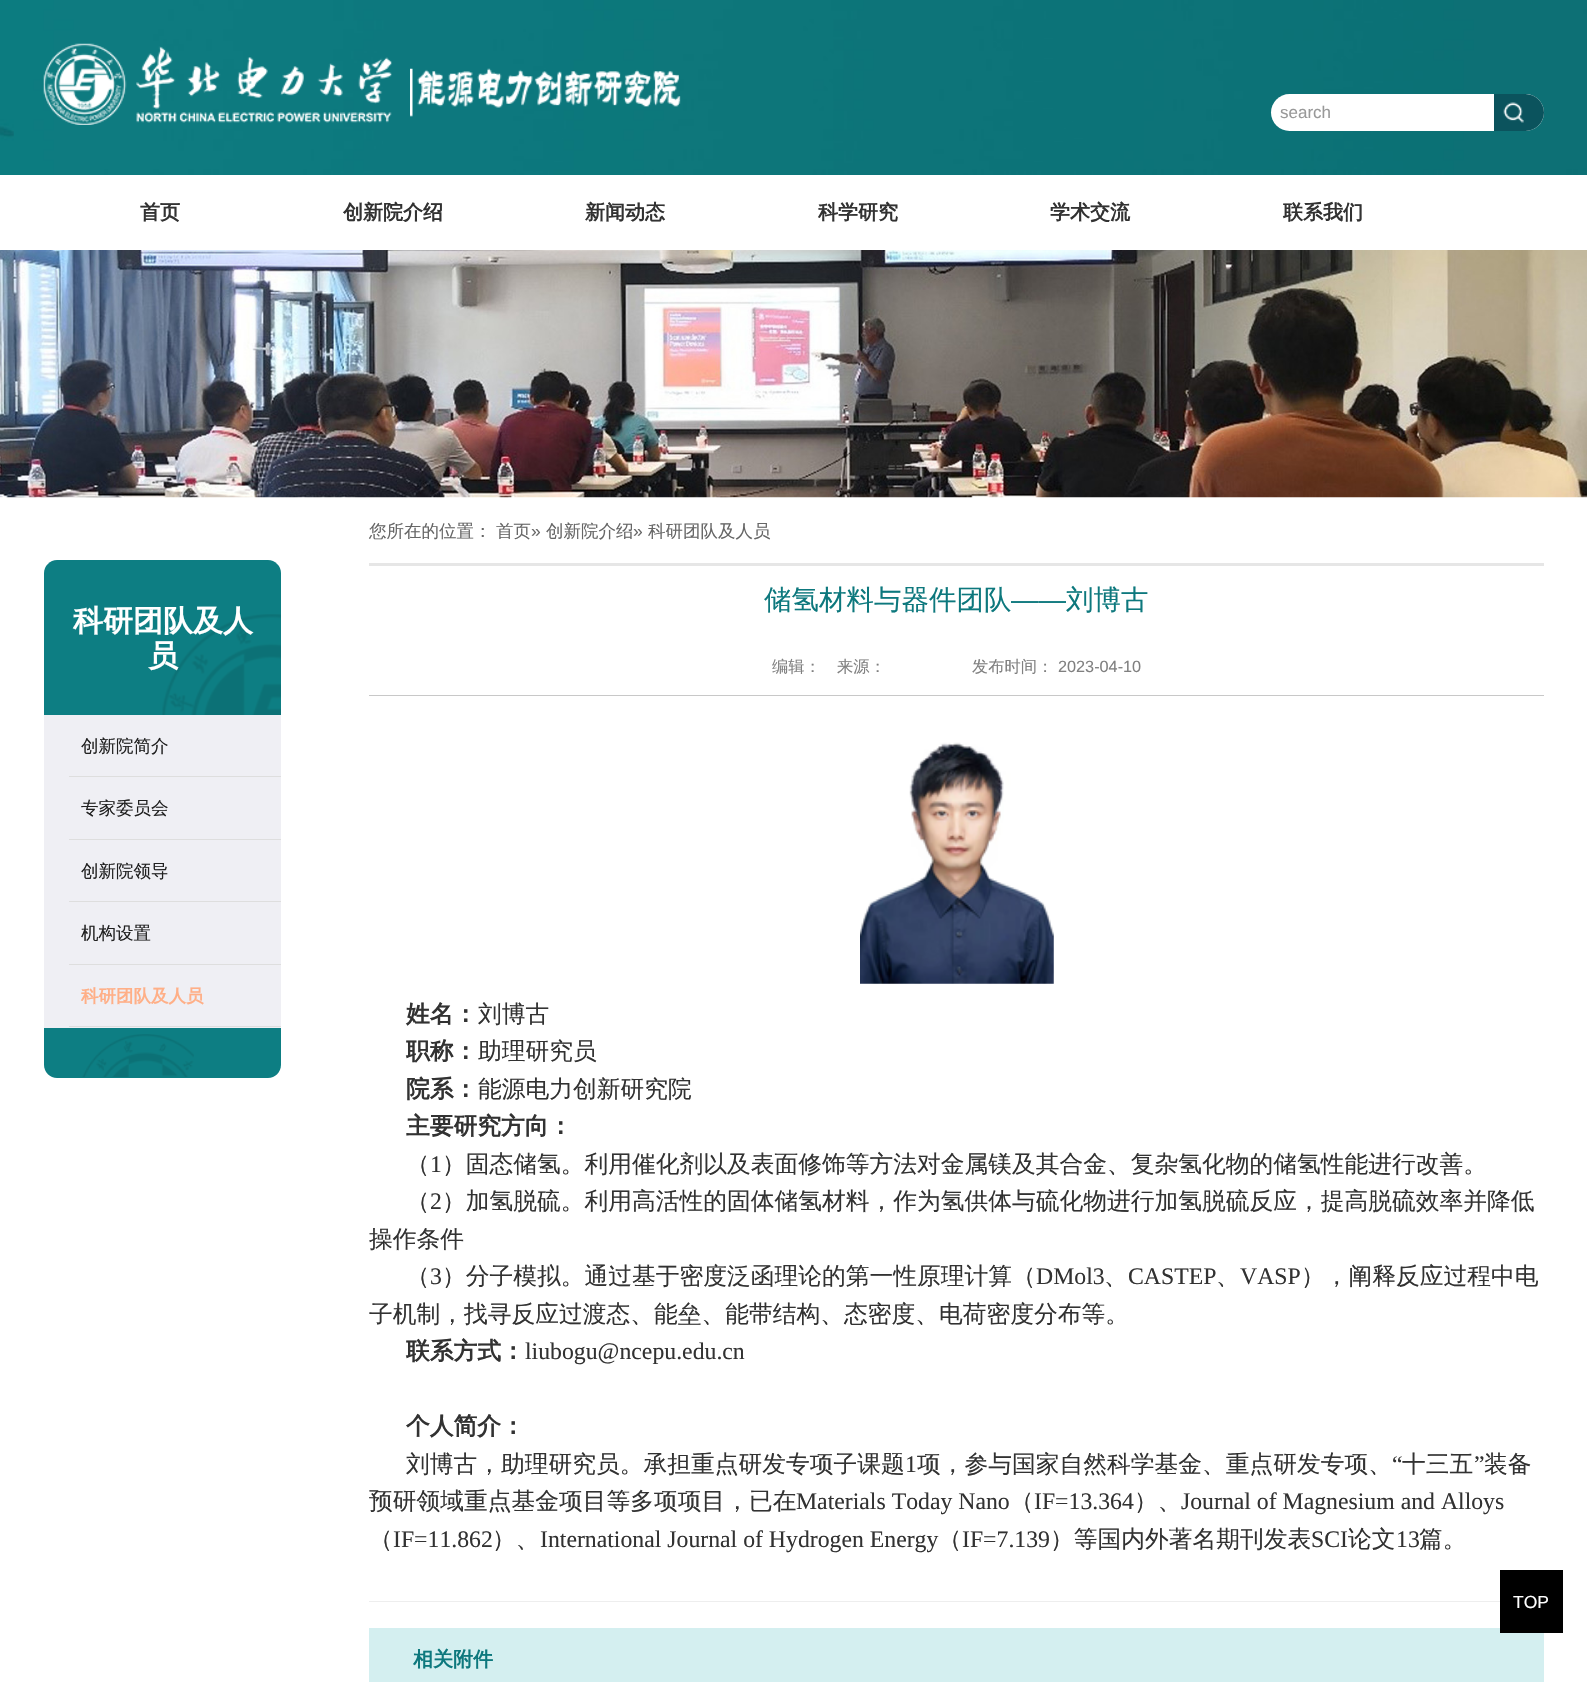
void draw(SkCanvas* canvas) {
    SkPaint paint;
    paint.setAntiAlias(true);
    canvas->clear(0xFFFFFFFF);
    canvas->drawImageRect(SkImages::DeferredFromEncodedData(SkData::MakeFromFileName("img1.png")), SkRect::MakeXYWH(0, 0, 1587, 175), SkSamplingOptions());
    canvas->drawImageRect(SkImages::DeferredFromEncodedData(SkData::MakeFromFileName("img2.png")), SkRect::MakeXYWH(43, 43, 349, 82), SkSamplingOptions());
    canvas->drawImageRect(SkImages::DeferredFromEncodedData(SkData::MakeFromFileName("img3.png")), SkRect::MakeXYWH(410, 68, 271, 49), SkSamplingOptions());
    paint.setColor(0xFFFFFFFF);
    canvas->drawRoundRect(SkRect::MakeXYWH(1271, 94, 273, 37), 18.5f, 18.5f, paint);
    SkFont font1(fontMgr->matchFamilyStyle("Liberation Sans", SkFontStyle::Normal()), 17);
    font1.setSubpixel(true);
    paint.setColor(0xFF999999);
    canvas->drawString("search", 1280, 118, font1, paint);
    paint.setColor(0xFF0B535D);
    canvas->drawPath(SkPathBuilder().moveTo(1494, 94).lineTo(1525.5f, 94).cubicTo(1535.5f, 94, 1544, 102.5f, 1544, 112.5f).cubicTo(1544, 122.5f, 1535.5f, 131, 1525.5f, 131).lineTo(1494, 131).close().detach(), paint);
    canvas->drawImageRect(SkImages::DeferredFromEncodedData(SkData::MakeFromFileName("img4.png")), SkRect::MakeXYWH(1503, 102, 21, 21), SkSamplingOptions());
    SkFont font2(fontMgr->matchFamilyStyle("WenQuanYi Zen Hei", SkFontStyle::Bold()), 20);
    font2.setSubpixel(true);
    paint.setColor(0xFF323232);
    canvas->drawString("首页", 140, 219, font2, paint);
    canvas->drawString("创新院介绍", 343, 219, font2, paint);
    canvas->drawString("新闻动态", 585, 219, font2, paint);
    canvas->drawString("科学研究", 818, 219, font2, paint);
    canvas->drawString("学术交流", 1050, 219, font2, paint);
    canvas->drawString("联系我们", 1283, 219, font2, paint);
    canvas->drawImageRect(SkImages::DeferredFromEncodedData(SkData::MakeFromFileName("img5.png")), SkRect::MakeXYWH(0, 250, 1587, 248), SkSamplingOptions());
    paint.setColor(0xFF0D7E83);
    canvas->drawPath(SkPathBuilder().moveTo(57, 560).lineTo(268, 560).cubicTo(275, 560, 281, 566, 281, 573).lineTo(281, 715).lineTo(44, 715).lineTo(44, 573).cubicTo(44, 566, 50, 560, 57, 560).close().detach(), paint);
    canvas->drawImageRect(SkImages::DeferredFromEncodedData(SkData::MakeFromFileName("img6.png")), SkRect::MakeXYWH(162, 614, 119, 101), SkSamplingOptions());
    SkFont font3(fontMgr->matchFamilyStyle("WenQuanYi Zen Hei", SkFontStyle::Bold()), 30);
    font3.setSubpixel(true);
    paint.setColor(0xFFFFFFFF);
    canvas->drawString("科研团队及人", 73, 631, font3, paint);
    canvas->drawString("员", 148, 666, font3, paint);
    paint.setColor(0xFFEFEFF4);
    canvas->drawRect(SkRect::MakeXYWH(44, 715, 237, 313), paint);
    paint.setColor(0xFFDEDEDE);
    canvas->drawRect(SkRect::MakeXYWH(69, 776, 212, 1), paint);
    SkFont font4(fontMgr->matchFamilyStyle("WenQuanYi Zen Hei", SkFontStyle(500, SkFontStyle::kNormal_Width, SkFontStyle::kUpright_Slant)), 17.5f);
    font4.setSubpixel(true);
    paint.setColor(0xFF202020);
    canvas->drawString("创新院简介", 81, 752, font4, paint);
    paint.setColor(0xFFDEDEDE);
    canvas->drawRect(SkRect::MakeXYWH(69, 839, 212, 1), paint);
    paint.setColor(0xFF202020);
    canvas->drawString("专家委员会", 81, 814, font4, paint);
    paint.setColor(0xFFDEDEDE);
    canvas->drawRect(SkRect::MakeXYWH(69, 901, 212, 1), paint);
    paint.setColor(0xFF202020);
    canvas->drawString("创新院领导", 81, 877, font4, paint);
    paint.setColor(0xFFDEDEDE);
    canvas->drawRect(SkRect::MakeXYWH(69, 964, 212, 1), paint);
    paint.setColor(0xFF202020);
    canvas->drawString("机构设置", 81, 939, font4, paint);
    paint.setColor(0xFFDEDEDE);
    canvas->drawRect(SkRect::MakeXYWH(69, 1026, 212, 1), paint);
    SkFont font5(fontMgr->matchFamilyStyle("WenQuanYi Zen Hei", SkFontStyle::Bold()), 17.5f);
    font5.setSubpixel(true);
    paint.setColor(0xFFFFAF87);
    canvas->drawString("科研团队及人员", 81, 1002, font5, paint);
    paint.setColor(0xFF0D7E83);
    canvas->drawPath(SkPathBuilder().moveTo(44, 1028).lineTo(281, 1028).lineTo(281, 1065).cubicTo(281, 1072, 275, 1078, 268, 1078).lineTo(57, 1078).cubicTo(50, 1078, 44, 1072, 44, 1065).close().detach(), paint);
    canvas->drawImageRect(SkImages::DeferredFromEncodedData(SkData::MakeFromFileName("img7.png")), SkRect::MakeXYWH(82, 1034, 112, 43), SkSamplingOptions());
    paint.setColor(0xFFE6E6E6);
    canvas->drawRect(SkRect::MakeXYWH(369, 563, 1175, 3), paint);
    paint.setColor(0xFF666666);
    canvas->drawString("您所在的位置：", 369, 537, font4, paint);
    canvas->drawString("首页", 496, 537, font4, paint);
    SkFont font6(fontMgr->matchFamilyStyle("Liberation Sans", SkFontStyle::Normal()), 17.5f);
    font6.setSubpixel(true);
    canvas->drawString("»", 531, 537, font6, paint);
    canvas->drawString("创新院介绍", 546, 537, font4, paint);
    canvas->drawString("»", 633, 537, font6, paint);
    canvas->drawString("科研团队及人员", 648, 537, font4, paint);
    SkFont font7(fontMgr->matchFamilyStyle("WenQuanYi Zen Hei", SkFontStyle(500, SkFontStyle::kNormal_Width, SkFontStyle::kUpright_Slant)), 27.5f);
    font7.setSubpixel(true);
    paint.setColor(0xFF0D787D);
    canvas->drawString("储氢材料与器件团队", 764, 609, font7, paint);
    SkFont font8(fontMgr->matchFamilyStyle("Liberation Sans", SkFontStyle::Normal()), 27.5f);
    font8.setSubpixel(true);
    canvas->drawString("——", 1011, 609, font8, paint);
    canvas->drawString("刘博古", 1066, 609, font7, paint);
    paint.setColor(0xFFC8C8C8);
    canvas->drawRect(SkRect::MakeXYWH(369, 695, 1175, 1), paint);
    SkFont font9(fontMgr->matchFamilyStyle("WenQuanYi Zen Hei", SkFontStyle(500, SkFontStyle::kNormal_Width, SkFontStyle::kUpright_Slant)), 16.25f);
    font9.setSubpixel(true);
    paint.setColor(0xFF808080);
    canvas->drawString("编辑：", 772, 672, font9, paint);
    canvas->drawString("来源：", 837, 672, font9, paint);
    canvas->drawString("发布时间：", 972, 672, font9, paint);
    SkFont font10(fontMgr->matchFamilyStyle("Liberation Sans", SkFontStyle::Normal()), 16.25f);
    font10.setSubpixel(true);
    canvas->drawString("2023-04-10", 1058, 672, font10, paint);
    canvas->drawImageRect(SkImages::DeferredFromEncodedData(SkData::MakeFromFileName("img8.png")), SkRect::MakeXYWH(860, 742, 194, 242), SkSamplingOptions());
    SkFont font11(fontMgr->matchFamilyStyle("WenQuanYi Zen Hei", SkFontStyle::Bold()), 23.75f);
    font11.setSubpixel(true);
    paint.setColor(0xFF323232);
    canvas->drawString("姓名：", 406, 1022, font11, paint);
    SkFont font12(fontMgr->matchFamilyStyle("WenQuanYi Zen Hei", SkFontStyle(500, SkFontStyle::kNormal_Width, SkFontStyle::kUpright_Slant)), 23.75f);
    font12.setSubpixel(true);
    canvas->drawString("刘博古", 478, 1022, font12, paint);
    canvas->drawString("职称：", 406, 1059, font11, paint);
    canvas->drawString("助理研究员", 478, 1059, font12, paint);
    canvas->drawString("院系：", 406, 1097, font11, paint);
    canvas->drawString("能源电力创新研究院", 478, 1097, font12, paint);
    canvas->drawString("主要研究方向：", 406, 1134, font11, paint);
    canvas->drawString("（", 406, 1172, font12, paint);
    SkFont font13(fontMgr->matchFamilyStyle("Liberation Serif", SkFontStyle::Normal()), 23.75f);
    font13.setSubpixel(true);
    canvas->drawString("1", 430, 1172, font13, paint);
    canvas->drawString("）固态储氢。利用催化剂以及表面修饰等方法对金属镁及其合金、复杂氢化物的储氢性能进行改善。", 442, 1172, font12, paint);
    canvas->drawString("（", 406, 1209, font12, paint);
    canvas->drawString("2", 430, 1209, font13, paint);
    canvas->drawString("）加氢脱硫。利用高活性的固体储氢材料，作为氢供体与硫化物进行加氢脱硫反应，提高脱硫效率并降低", 442, 1209, font12, paint);
    canvas->drawString("操作条件", 369, 1247, font12, paint);
    canvas->drawString("（", 406, 1284, font12, paint);
    canvas->drawString("3", 430, 1284, font13, paint);
    canvas->drawString("）分子模拟。通过基于密度泛函理论的第一性原理计算（", 442, 1284, font12, paint);
    canvas->drawString("DMol3", 1036, 1284, font13, paint);
    canvas->drawString("、", 1104, 1284, font12, paint);
    canvas->drawString("CASTEP", 1128, 1284, font13, paint);
    canvas->drawString("、", 1216, 1284, font12, paint);
    canvas->drawString("VASP", 1240, 1284, font13, paint);
    canvas->drawString("），阐释反应过程中电", 1301, 1284, font12, paint);
    canvas->drawString("子机制，找寻反应过渡态、能垒、能带结构、态密度、电荷密度分布等。", 369, 1322, font12, paint);
    canvas->drawString("联系方式：", 406, 1359, font11, paint);
    canvas->drawString("liubogu@ncepu.edu.cn", 525, 1359, font13, paint);
    canvas->drawString("个人简介：", 406, 1434, font11, paint);
    canvas->drawString("刘博古，助理研究员。承担重点研发专项子课题", 406, 1472, font12, paint);
    canvas->drawString("1", 905, 1472, font13, paint);
    canvas->drawString("项，参与国家自然科学基金、重点研发专项、", 917, 1472, font12, paint);
    canvas->drawString("“", 1392, 1472, font13, paint);
    canvas->drawString("十三五", 1402, 1472, font12, paint);
    canvas->drawString("”", 1474, 1472, font13, paint);
    canvas->drawString("装备", 1484, 1472, font12, paint);
    canvas->drawString("预研领域重点基金项目等多项项目，已在", 369, 1509, font12, paint);
    canvas->drawString("Materials Today Nano", 796, 1509, font13, paint);
    canvas->drawString("（", 1010, 1509, font12, paint);
    canvas->drawString("IF=13.364", 1034, 1509, font13, paint);
    canvas->drawString("）、", 1134, 1509, font12, paint);
    canvas->drawString("Journal of Magnesium and Alloys", 1181, 1509, font13, paint);
    canvas->drawString("（", 369, 1547, font12, paint);
    canvas->drawString("IF=11.862", 393, 1547, font13, paint);
    canvas->drawString("）、", 492, 1547, font12, paint);
    canvas->drawString("International Journal of Hydrogen Energy", 540, 1547, font13, paint);
    canvas->drawString("（", 938, 1547, font12, paint);
    canvas->drawString("IF=7.139", 962, 1547, font13, paint);
    canvas->drawString("）等国内外著名期刊发表", 1050, 1547, font12, paint);
    canvas->drawString("SCI", 1311, 1547, font13, paint);
    canvas->drawString("论文", 1348, 1547, font12, paint);
    canvas->drawString("13", 1396, 1547, font13, paint);
    canvas->drawString("篇。", 1419, 1547, font12, paint);
    paint.setColor(0xFFEEEEEE);
    canvas->drawRect(SkRect::MakeXYWH(369, 1601, 1131, 1), paint);
    paint.setColor(0xFFD4EFF0);
    canvas->drawRect(SkRect::MakeXYWH(369, 1628, 1175, 54), paint);
    paint.setColor(0xFF0D787D);
    canvas->drawString("相关附件", 413, 1666, font2, paint);
    paint.setColor(0xFF000000);
    canvas->drawRect(SkRect::MakeXYWH(1500, 1570, 63, 63), paint);
    paint.setColor(0xFFFFFFFF);
    canvas->drawString("TOP", 1513, 1608, font6, paint);
}
